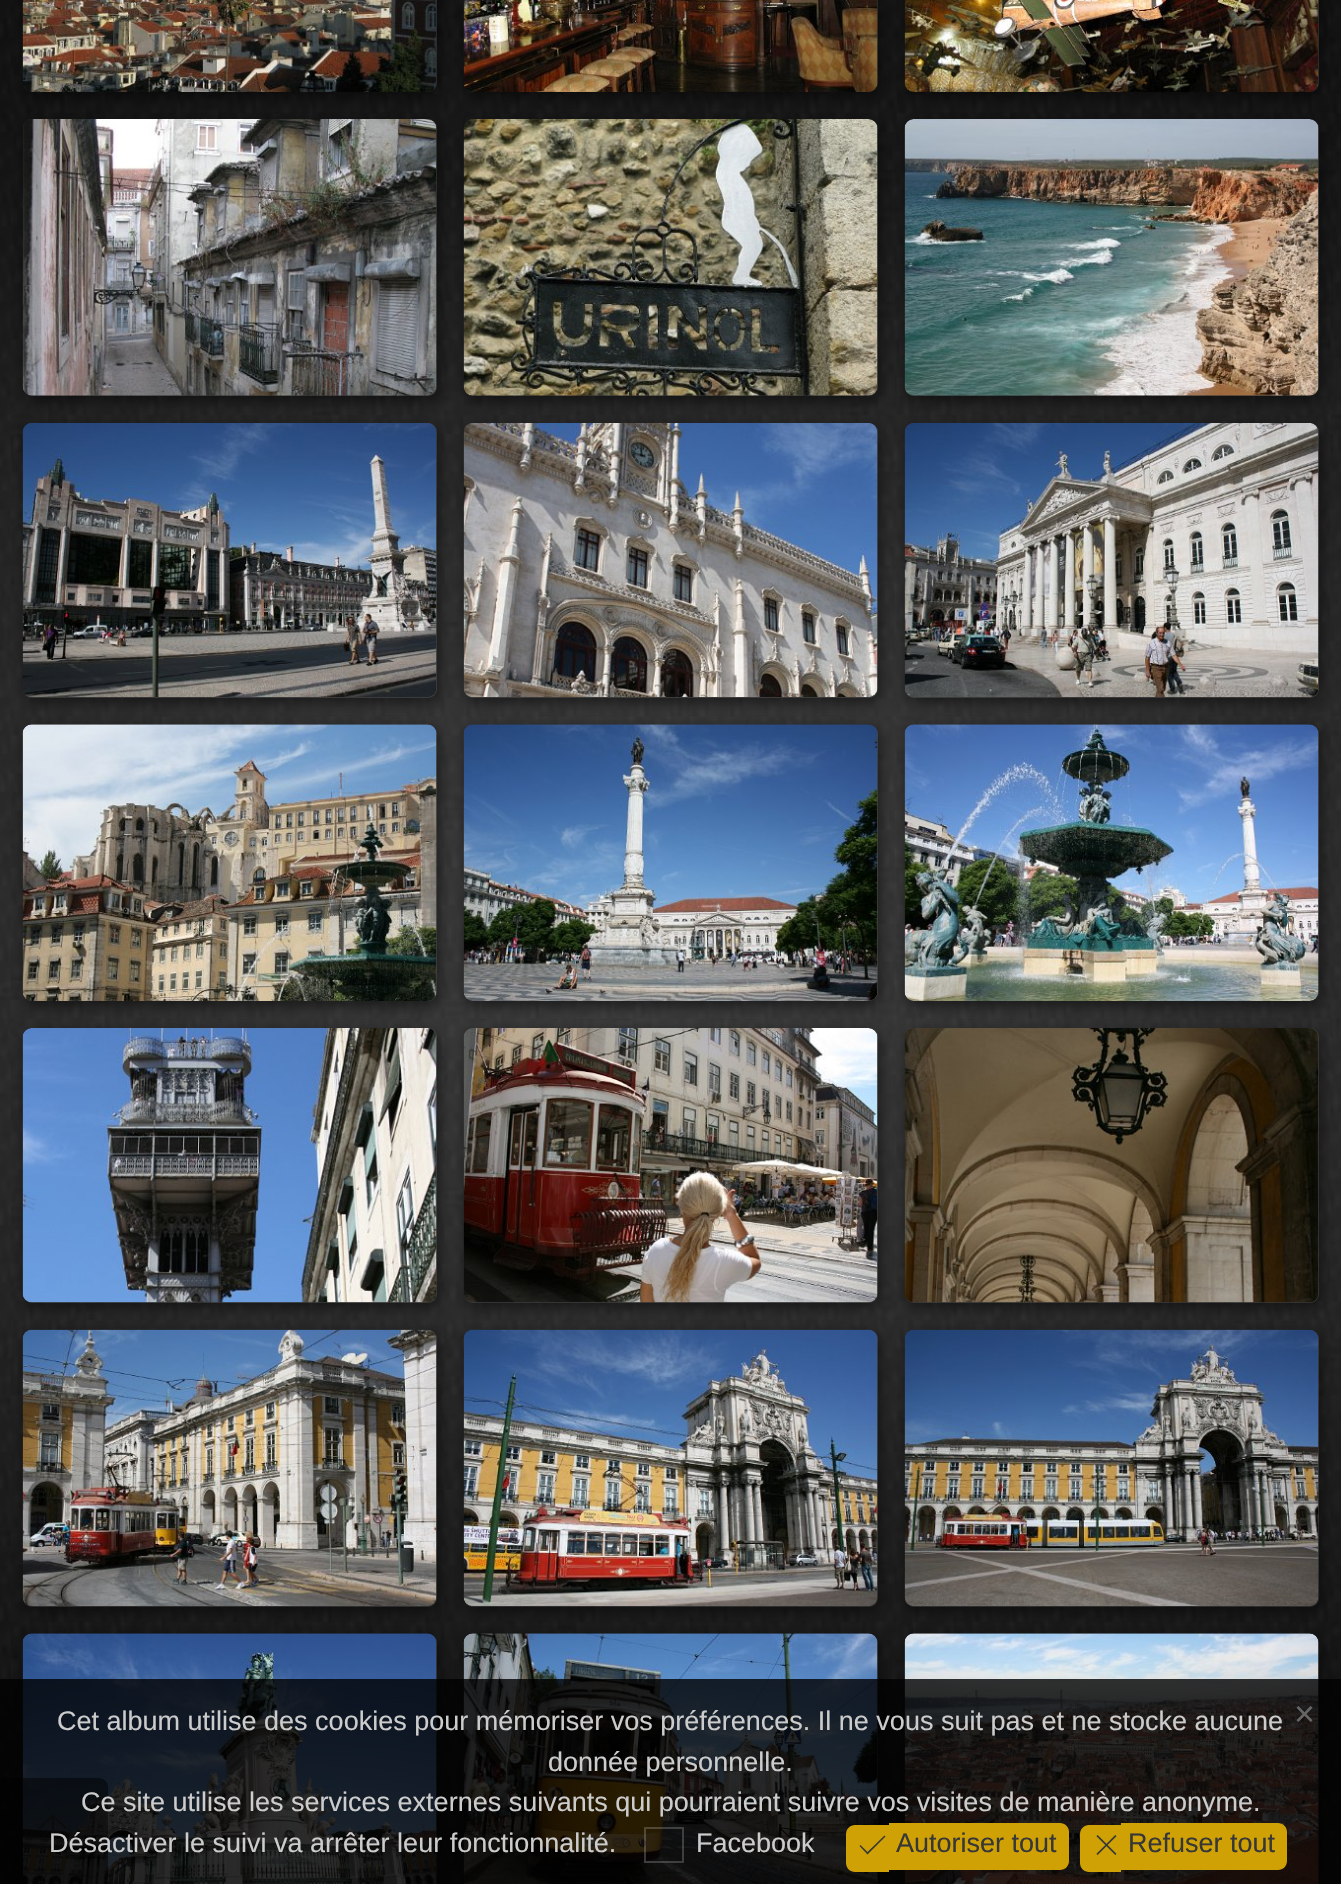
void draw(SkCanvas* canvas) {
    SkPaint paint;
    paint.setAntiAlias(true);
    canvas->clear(0xFFFFFFFF);
    canvas->drawImageRect(SkImages::DeferredFromEncodedData(SkData::MakeFromFileName("img1.png")), SkRect::MakeXYWH(0, 0, 1341, 1884), SkSamplingOptions());
    paint.setColor(0x85000000);
    paint.setMaskFilter(SkMaskFilter::MakeBlur(kNormal_SkBlurStyle, 7));
    canvas->drawRoundRect(SkRect::MakeXYWH(25, -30, 414, 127), 9, 9, paint);
    paint.setMaskFilter(nullptr);
    paint.setColor(0x21EEEEEE);
    canvas->drawRoundRect(SkRect::MakeXYWH(23, -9, 414, 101), 9, 9, paint);
    canvas->drawImageRect(SkImages::DeferredFromEncodedData(SkData::MakeFromFileName("img2.png")), SkRect::MakeXYWH(22, 0, 415, 92), SkSamplingOptions());
    paint.setColor(0x85000000);
    paint.setMaskFilter(SkMaskFilter::MakeBlur(kNormal_SkBlurStyle, 7));
    canvas->drawRoundRect(SkRect::MakeXYWH(466, -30, 414, 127), 9, 9, paint);
    paint.setMaskFilter(nullptr);
    paint.setColor(0x21EEEEEE);
    canvas->drawRoundRect(SkRect::MakeXYWH(464, -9, 414, 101), 9, 9, paint);
    canvas->drawImageRect(SkImages::DeferredFromEncodedData(SkData::MakeFromFileName("img3.png")), SkRect::MakeXYWH(463, 0, 415, 92), SkSamplingOptions());
    paint.setColor(0x85000000);
    paint.setMaskFilter(SkMaskFilter::MakeBlur(kNormal_SkBlurStyle, 7));
    canvas->drawRoundRect(SkRect::MakeXYWH(907, -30, 414, 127), 9, 9, paint);
    paint.setMaskFilter(nullptr);
    paint.setColor(0x21EEEEEE);
    canvas->drawRoundRect(SkRect::MakeXYWH(905, -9, 414, 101), 9, 9, paint);
    canvas->drawImageRect(SkImages::DeferredFromEncodedData(SkData::MakeFromFileName("img4.png")), SkRect::MakeXYWH(904, 0, 415, 92), SkSamplingOptions());
    paint.setColor(0x85000000);
    paint.setMaskFilter(SkMaskFilter::MakeBlur(kNormal_SkBlurStyle, 7));
    canvas->drawRoundRect(SkRect::MakeXYWH(25, 124, 414, 277), 9, 9, paint);
    paint.setMaskFilter(nullptr);
    paint.setColor(0x21EEEEEE);
    canvas->drawRoundRect(SkRect::MakeXYWH(23, 119, 414, 277), 9, 9, paint);
    canvas->drawImageRect(SkImages::DeferredFromEncodedData(SkData::MakeFromFileName("img5.png")), SkRect::MakeXYWH(22, 119, 415, 277), SkSamplingOptions());
    paint.setColor(0x85000000);
    paint.setMaskFilter(SkMaskFilter::MakeBlur(kNormal_SkBlurStyle, 7));
    canvas->drawRoundRect(SkRect::MakeXYWH(466, 124, 414, 277), 9, 9, paint);
    paint.setMaskFilter(nullptr);
    paint.setColor(0x21EEEEEE);
    canvas->drawRoundRect(SkRect::MakeXYWH(464, 119, 414, 277), 9, 9, paint);
    canvas->drawImageRect(SkImages::DeferredFromEncodedData(SkData::MakeFromFileName("img6.png")), SkRect::MakeXYWH(463, 119, 415, 277), SkSamplingOptions());
    paint.setColor(0x85000000);
    paint.setMaskFilter(SkMaskFilter::MakeBlur(kNormal_SkBlurStyle, 7));
    canvas->drawRoundRect(SkRect::MakeXYWH(907, 124, 414, 277), 9, 9, paint);
    paint.setMaskFilter(nullptr);
    paint.setColor(0x21EEEEEE);
    canvas->drawRoundRect(SkRect::MakeXYWH(905, 119, 414, 277), 9, 9, paint);
    canvas->drawImageRect(SkImages::DeferredFromEncodedData(SkData::MakeFromFileName("img7.png")), SkRect::MakeXYWH(904, 119, 415, 277), SkSamplingOptions());
    paint.setColor(0x85000000);
    paint.setMaskFilter(SkMaskFilter::MakeBlur(kNormal_SkBlurStyle, 7));
    canvas->drawRoundRect(SkRect::MakeXYWH(25, 428, 414, 274), 9, 9, paint);
    paint.setMaskFilter(nullptr);
    paint.setColor(0x21EEEEEE);
    canvas->drawRoundRect(SkRect::MakeXYWH(23, 423, 414, 275), 9, 9, paint);
    canvas->drawImageRect(SkImages::DeferredFromEncodedData(SkData::MakeFromFileName("img8.png")), SkRect::MakeXYWH(22, 423, 415, 274), SkSamplingOptions());
    paint.setColor(0x85000000);
    paint.setMaskFilter(SkMaskFilter::MakeBlur(kNormal_SkBlurStyle, 7));
    canvas->drawRoundRect(SkRect::MakeXYWH(466, 428, 414, 274), 9, 9, paint);
    paint.setMaskFilter(nullptr);
    paint.setColor(0x21EEEEEE);
    canvas->drawRoundRect(SkRect::MakeXYWH(464, 423, 414, 275), 9, 9, paint);
    canvas->drawImageRect(SkImages::DeferredFromEncodedData(SkData::MakeFromFileName("img9.png")), SkRect::MakeXYWH(463, 423, 415, 274), SkSamplingOptions());
    paint.setColor(0x85000000);
    paint.setMaskFilter(SkMaskFilter::MakeBlur(kNormal_SkBlurStyle, 7));
    canvas->drawRoundRect(SkRect::MakeXYWH(907, 428, 414, 274), 9, 9, paint);
    paint.setMaskFilter(nullptr);
    paint.setColor(0x21EEEEEE);
    canvas->drawRoundRect(SkRect::MakeXYWH(905, 423, 414, 275), 9, 9, paint);
    canvas->drawImageRect(SkImages::DeferredFromEncodedData(SkData::MakeFromFileName("img10.png")), SkRect::MakeXYWH(904, 423, 415, 274), SkSamplingOptions());
    paint.setColor(0x85000000);
    paint.setMaskFilter(SkMaskFilter::MakeBlur(kNormal_SkBlurStyle, 7));
    canvas->drawRoundRect(SkRect::MakeXYWH(25, 729, 414, 277), 9, 9, paint);
    paint.setMaskFilter(nullptr);
    paint.setColor(0x21EEEEEE);
    canvas->drawRoundRect(SkRect::MakeXYWH(23, 725, 414, 276), 9, 9, paint);
    canvas->drawImageRect(SkImages::DeferredFromEncodedData(SkData::MakeFromFileName("img11.png")), SkRect::MakeXYWH(22, 724, 415, 277), SkSamplingOptions());
    paint.setColor(0x85000000);
    paint.setMaskFilter(SkMaskFilter::MakeBlur(kNormal_SkBlurStyle, 7));
    canvas->drawRoundRect(SkRect::MakeXYWH(466, 729, 414, 277), 9, 9, paint);
    paint.setMaskFilter(nullptr);
    paint.setColor(0x21EEEEEE);
    canvas->drawRoundRect(SkRect::MakeXYWH(464, 725, 414, 276), 9, 9, paint);
    canvas->drawImageRect(SkImages::DeferredFromEncodedData(SkData::MakeFromFileName("img12.png")), SkRect::MakeXYWH(463, 724, 415, 277), SkSamplingOptions());
    paint.setColor(0x85000000);
    paint.setMaskFilter(SkMaskFilter::MakeBlur(kNormal_SkBlurStyle, 7));
    canvas->drawRoundRect(SkRect::MakeXYWH(907, 729, 414, 277), 9, 9, paint);
    paint.setMaskFilter(nullptr);
    paint.setColor(0x21EEEEEE);
    canvas->drawRoundRect(SkRect::MakeXYWH(905, 725, 414, 276), 9, 9, paint);
    canvas->drawImageRect(SkImages::DeferredFromEncodedData(SkData::MakeFromFileName("img13.png")), SkRect::MakeXYWH(904, 724, 415, 277), SkSamplingOptions());
    paint.setColor(0x85000000);
    paint.setMaskFilter(SkMaskFilter::MakeBlur(kNormal_SkBlurStyle, 7));
    canvas->drawRoundRect(SkRect::MakeXYWH(25, 1033, 414, 274), 9, 9, paint);
    paint.setMaskFilter(nullptr);
    paint.setColor(0x21EEEEEE);
    canvas->drawRoundRect(SkRect::MakeXYWH(23, 1028, 414, 275), 9, 9, paint);
    canvas->drawImageRect(SkImages::DeferredFromEncodedData(SkData::MakeFromFileName("img14.png")), SkRect::MakeXYWH(22, 1028, 415, 275), SkSamplingOptions());
    paint.setColor(0x85000000);
    paint.setMaskFilter(SkMaskFilter::MakeBlur(kNormal_SkBlurStyle, 7));
    canvas->drawRoundRect(SkRect::MakeXYWH(466, 1033, 414, 274), 9, 9, paint);
    paint.setMaskFilter(nullptr);
    paint.setColor(0x21EEEEEE);
    canvas->drawRoundRect(SkRect::MakeXYWH(464, 1028, 414, 275), 9, 9, paint);
    canvas->drawImageRect(SkImages::DeferredFromEncodedData(SkData::MakeFromFileName("img15.png")), SkRect::MakeXYWH(463, 1028, 415, 275), SkSamplingOptions());
    paint.setColor(0x85000000);
    paint.setMaskFilter(SkMaskFilter::MakeBlur(kNormal_SkBlurStyle, 7));
    canvas->drawRoundRect(SkRect::MakeXYWH(907, 1033, 414, 274), 9, 9, paint);
    paint.setMaskFilter(nullptr);
    paint.setColor(0x21EEEEEE);
    canvas->drawRoundRect(SkRect::MakeXYWH(905, 1028, 414, 275), 9, 9, paint);
    canvas->drawImageRect(SkImages::DeferredFromEncodedData(SkData::MakeFromFileName("img16.png")), SkRect::MakeXYWH(904, 1028, 415, 275), SkSamplingOptions());
    paint.setColor(0x85000000);
    paint.setMaskFilter(SkMaskFilter::MakeBlur(kNormal_SkBlurStyle, 7));
    canvas->drawRoundRect(SkRect::MakeXYWH(25, 1334, 414, 277), 9, 9, paint);
    paint.setMaskFilter(nullptr);
    paint.setColor(0x21EEEEEE);
    canvas->drawRoundRect(SkRect::MakeXYWH(23, 1330, 414, 277), 9, 9, paint);
    canvas->drawImageRect(SkImages::DeferredFromEncodedData(SkData::MakeFromFileName("img17.png")), SkRect::MakeXYWH(22, 1329, 415, 277), SkSamplingOptions());
    paint.setColor(0x85000000);
    paint.setMaskFilter(SkMaskFilter::MakeBlur(kNormal_SkBlurStyle, 7));
    canvas->drawRoundRect(SkRect::MakeXYWH(466, 1334, 414, 277), 9, 9, paint);
    paint.setMaskFilter(nullptr);
    paint.setColor(0x21EEEEEE);
    canvas->drawRoundRect(SkRect::MakeXYWH(464, 1330, 414, 277), 9, 9, paint);
    canvas->drawImageRect(SkImages::DeferredFromEncodedData(SkData::MakeFromFileName("img18.png")), SkRect::MakeXYWH(463, 1329, 415, 277), SkSamplingOptions());
    paint.setColor(0x85000000);
    paint.setMaskFilter(SkMaskFilter::MakeBlur(kNormal_SkBlurStyle, 7));
    canvas->drawRoundRect(SkRect::MakeXYWH(907, 1334, 414, 277), 9, 9, paint);
    paint.setMaskFilter(nullptr);
    paint.setColor(0x21EEEEEE);
    canvas->drawRoundRect(SkRect::MakeXYWH(905, 1330, 414, 277), 9, 9, paint);
    canvas->drawImageRect(SkImages::DeferredFromEncodedData(SkData::MakeFromFileName("img19.png")), SkRect::MakeXYWH(904, 1329, 415, 277), SkSamplingOptions());
    paint.setColor(0x85000000);
    paint.setMaskFilter(SkMaskFilter::MakeBlur(kNormal_SkBlurStyle, 7));
    canvas->drawRoundRect(SkRect::MakeXYWH(25, 1638, 414, 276), 9, 9, paint);
    paint.setMaskFilter(nullptr);
    paint.setColor(0x21EEEEEE);
    canvas->drawRoundRect(SkRect::MakeXYWH(23, 1634, 414, 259), 9, 9, paint);
    canvas->drawImageRect(SkImages::DeferredFromEncodedData(SkData::MakeFromFileName("img20.png")), SkRect::MakeXYWH(22, 1633, 415, 251), SkSamplingOptions());
    paint.setColor(0x85000000);
    paint.setMaskFilter(SkMaskFilter::MakeBlur(kNormal_SkBlurStyle, 7));
    canvas->drawRoundRect(SkRect::MakeXYWH(466, 1638, 414, 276), 9, 9, paint);
    paint.setMaskFilter(nullptr);
    paint.setColor(0x21EEEEEE);
    canvas->drawRoundRect(SkRect::MakeXYWH(464, 1634, 414, 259), 9, 9, paint);
    canvas->drawImageRect(SkImages::DeferredFromEncodedData(SkData::MakeFromFileName("img21.png")), SkRect::MakeXYWH(463, 1633, 415, 251), SkSamplingOptions());
    paint.setColor(0x85000000);
    paint.setMaskFilter(SkMaskFilter::MakeBlur(kNormal_SkBlurStyle, 7));
    canvas->drawRoundRect(SkRect::MakeXYWH(907, 1638, 414, 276), 9, 9, paint);
    paint.setMaskFilter(nullptr);
    paint.setColor(0x21EEEEEE);
    canvas->drawRoundRect(SkRect::MakeXYWH(905, 1634, 414, 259), 9, 9, paint);
    canvas->drawImageRect(SkImages::DeferredFromEncodedData(SkData::MakeFromFileName("img22.png")), SkRect::MakeXYWH(904, 1633, 415, 251), SkSamplingOptions());
    paint.setColor(0x80000000);
    canvas->drawPath(SkPathBuilder().moveTo(0, 1778).lineTo(99, 1778).cubicTo(104, 1778, 108, 1782, 108, 1787).lineTo(108, 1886).lineTo(0, 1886).close().detach(), paint);
    paint.setColor(0xFF373737);
    canvas->drawPath(SkPathBuilder().moveTo(54, 1845).lineTo(54, 1818).lineTo(65.5f, 1829.5f).lineTo(67, 1828).lineTo(53, 1814).lineTo(38.5f, 1828).lineTo(40, 1829.5f).lineTo(51.5f, 1818).lineTo(51.5f, 1845).close().detach(), paint);
    paint.setColor(0xCC000000);
    canvas->drawRect(SkRect::MakeXYWH(0, 1679, 1341, 205), paint);
    SkFont font1(fontMgr->matchFamilyStyle("Liberation Sans", SkFontStyle::Normal()), 27);
    font1.setSubpixel(true);
    paint.setColor(0xFFCCCCCC);
    canvas->drawString("Cet album utilise des cookies pour mémoriser vos préférences. Il ne vous suit pas et ne stocke aucune", 57, 1730, font1, paint);
    canvas->drawString("donnée personnelle.", 548, 1771, font1, paint);
    SkFont font2(fontMgr->matchFamilyStyle("Liberation Sans", SkFontStyle::Normal()), 36);
    font2.setSubpixel(true);
    paint.setColor(0xFF666666);
    canvas->drawString("×", 1294, 1726, font2, paint);
    paint.setColor(0xFFCCCCCC);
    canvas->drawString("Ce site utilise les services externes suivants qui pourraient suivre vos visites de manière anonyme.", 81, 1811, font1, paint);
    canvas->drawString("Désactiver le suivi va arrêter leur fonctionnalité.", 49, 1852, font1, paint);
    paint.setStyle(SkPaint::kStroke_Style);
    paint.setStrokeWidth(2);
    paint.setColor(0x40CCCCCC);
    canvas->drawRect(SkRect::MakeXYWH(645, 1828, 38, 34), paint);
    paint.setStyle(SkPaint::kFill_Style);
    paint.setColor(0xFFCCCCCC);
    canvas->drawString("Facebook", 696, 1852, font1, paint);
    paint.setColor(0xFFD0A105);
    canvas->drawPath(SkPathBuilder().moveTo(889, 1823).lineTo(1060, 1823).cubicTo(1065, 1823, 1069, 1827, 1069, 1832).lineTo(1069, 1861).cubicTo(1069, 1866, 1065, 1870, 1060, 1870).lineTo(889, 1870).close().detach(), paint);
    paint.setColor(0xFF373737);
    canvas->drawString("Autoriser tout", 896, 1852, font1, paint);
    paint.setColor(0xFFD0A105);
    canvas->drawPath(SkPathBuilder().moveTo(855, 1825).lineTo(889, 1825).lineTo(889, 1872).lineTo(855, 1872).cubicTo(850, 1872, 846, 1868, 846, 1863).lineTo(846, 1834).cubicTo(846, 1829, 850, 1825, 855, 1825).close().detach(), paint);
    paint.setColor(0xFF373737);
    canvas->drawPath(SkPathBuilder().moveTo(884.5f, 1835.5f).lineTo(867.5f, 1852).lineTo(860.5f, 1845).lineTo(859.5f, 1846).lineTo(867.5f, 1854.5f).lineTo(885.5f, 1836.5f).close().detach(), paint);
    paint.setColor(0xFFD0A105);
    canvas->drawPath(SkPathBuilder().moveTo(1089, 1825).lineTo(1121, 1825).lineTo(1121, 1872).lineTo(1089, 1872).cubicTo(1084, 1872, 1080, 1868, 1080, 1863).lineTo(1080, 1834).cubicTo(1080, 1829, 1084, 1825, 1089, 1825).close().detach(), paint);
    canvas->drawImageRect(SkImages::DeferredFromEncodedData(SkData::MakeFromFileName("img23.png")), SkRect::MakeXYWH(1096, 1835, 21, 20), SkSamplingOptions());
    canvas->drawPath(SkPathBuilder().moveTo(1121, 1823).lineTo(1278, 1823).cubicTo(1283, 1823, 1287, 1827, 1287, 1832).lineTo(1287, 1861).cubicTo(1287, 1866, 1283, 1870, 1278, 1870).lineTo(1121, 1870).close().detach(), paint);
    paint.setColor(0xFF373737);
    canvas->drawString("Refuser tout", 1128, 1852, font1, paint);
}
